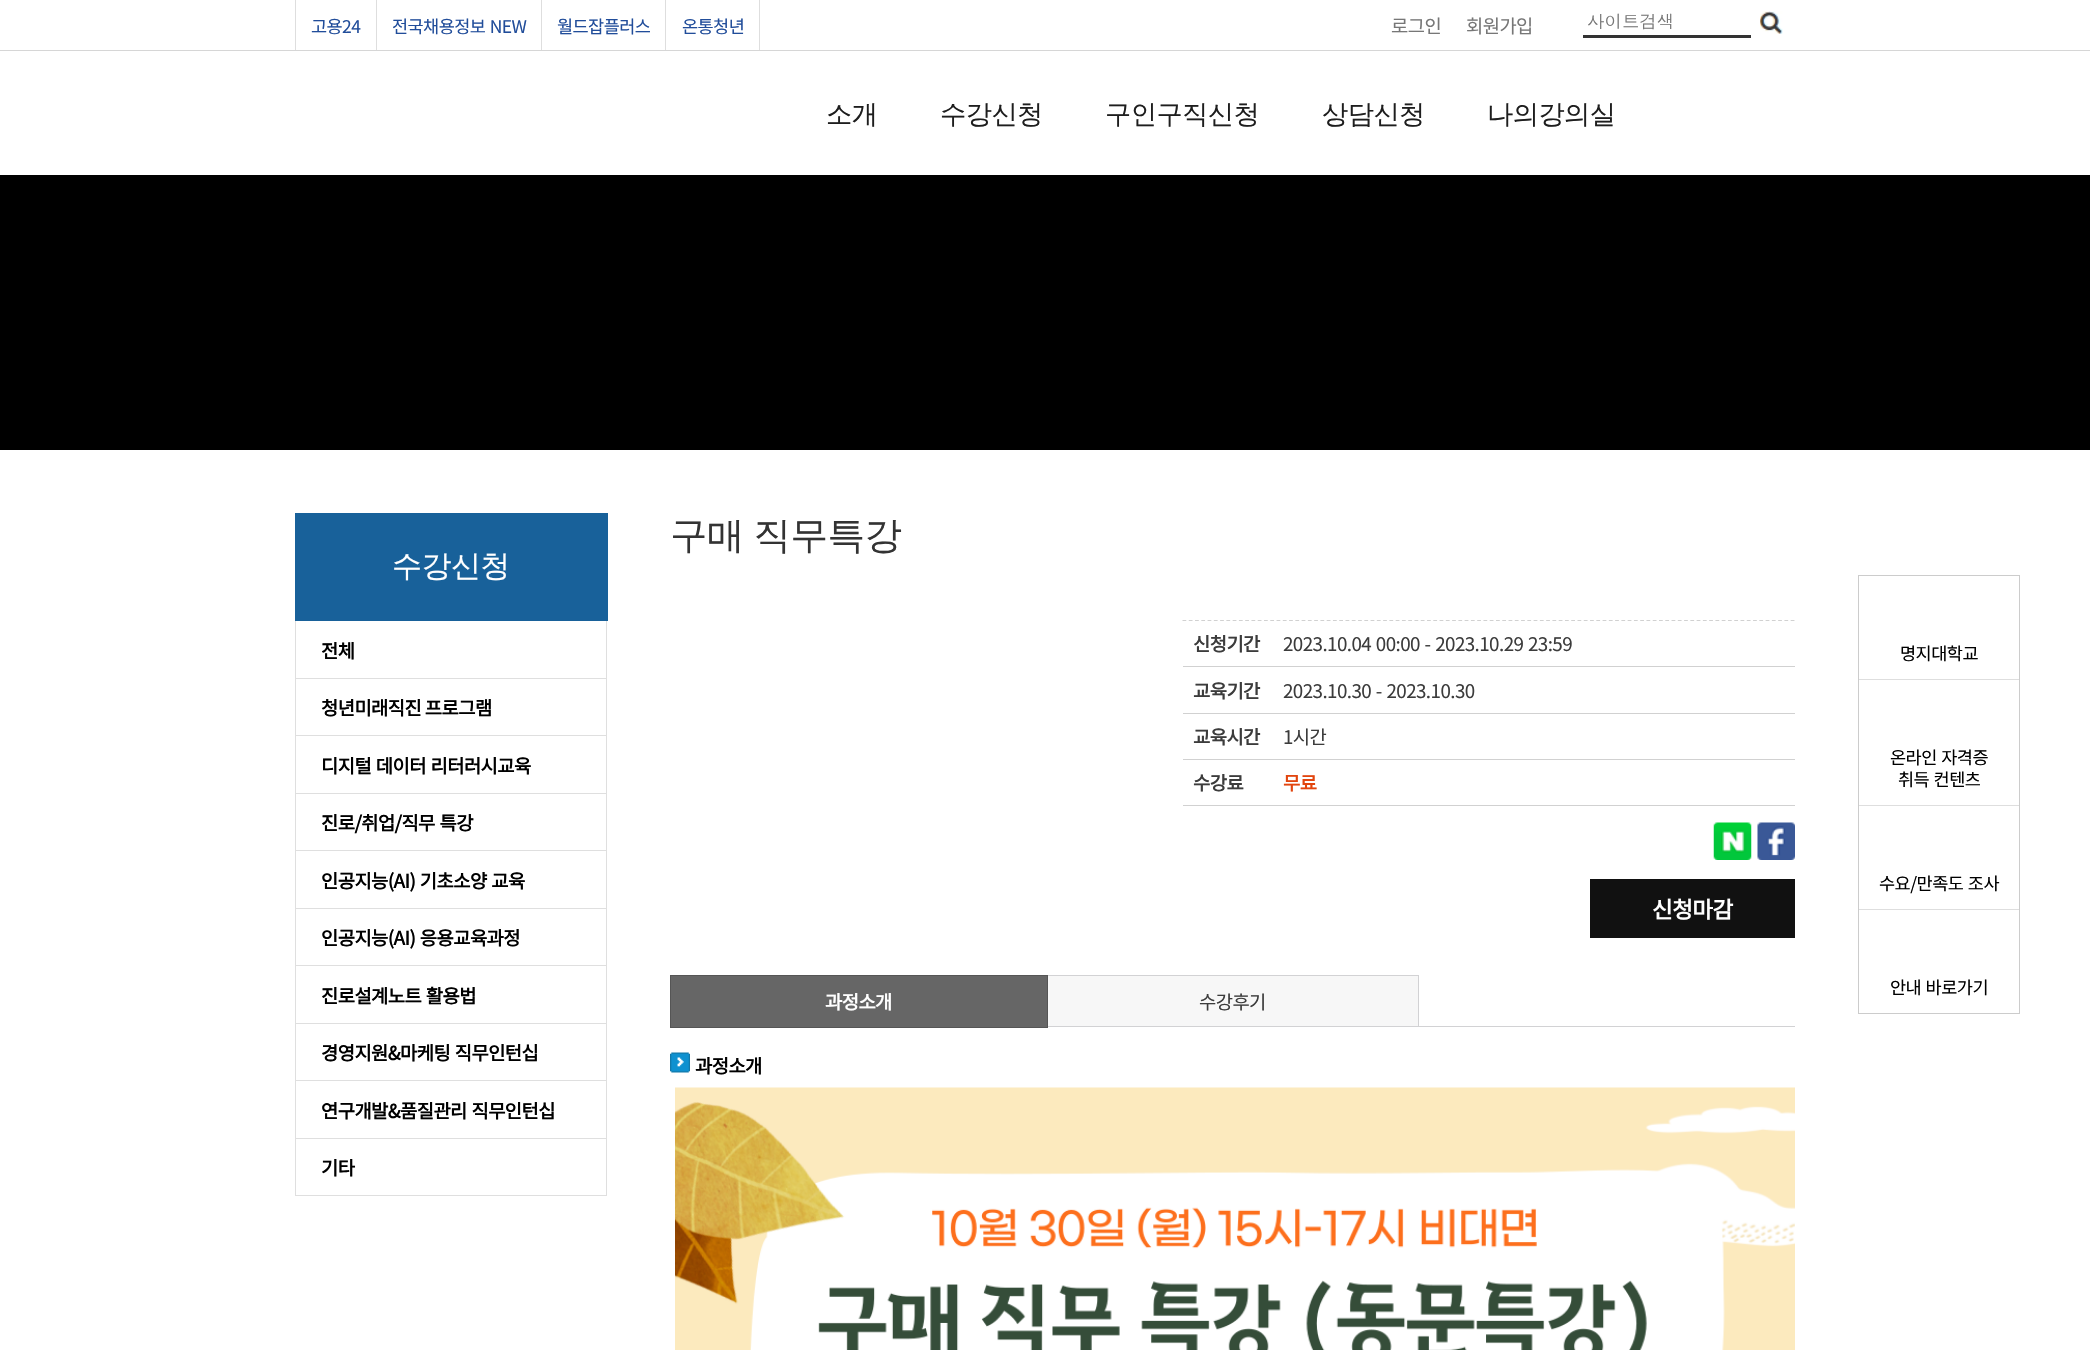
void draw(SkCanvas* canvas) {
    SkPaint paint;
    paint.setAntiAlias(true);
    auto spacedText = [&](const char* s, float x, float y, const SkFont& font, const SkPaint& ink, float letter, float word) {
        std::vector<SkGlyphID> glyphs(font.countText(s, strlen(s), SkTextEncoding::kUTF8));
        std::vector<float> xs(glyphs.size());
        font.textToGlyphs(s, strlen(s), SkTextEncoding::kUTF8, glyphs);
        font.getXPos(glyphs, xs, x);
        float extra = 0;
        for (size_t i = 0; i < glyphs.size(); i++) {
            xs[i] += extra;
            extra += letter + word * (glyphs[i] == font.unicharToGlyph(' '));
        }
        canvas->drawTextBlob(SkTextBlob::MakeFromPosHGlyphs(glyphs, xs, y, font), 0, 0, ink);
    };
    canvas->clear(0xFFFFFFFF);
    paint.setColor(0xFFD6D6D6);
    canvas->drawRect(SkRect::MakeXYWH(0, 50, 2090, 1), paint);
    paint.setColor(0xFFDEDEDE);
    canvas->drawRect(SkRect::MakeXYWH(295, 0, 1, 50), paint);
    canvas->drawRect(SkRect::MakeXYWH(376, 0, 1, 50), paint);
    SkFont font1(fontMgr->matchFamilyStyle("Noto Sans KR", SkFontStyle(100, SkFontStyle::kNormal_Width, SkFontStyle::kUpright_Slant)), 17.5f);
    font1.setSubpixel(true);
    paint.setColor(0xFF214D9A);
    spacedText("고용24", 311, 33, font1, paint, -0.55f, 0);
    paint.setColor(0xFFDEDEDE);
    canvas->drawRect(SkRect::MakeXYWH(541, 0, 1, 50), paint);
    paint.setColor(0xFF214D9A);
    spacedText("전국채용정보 NEW", 392, 33, font1, paint, -0.55f, 1);
    paint.setColor(0xFFDEDEDE);
    canvas->drawRect(SkRect::MakeXYWH(665, 0, 1, 50), paint);
    paint.setColor(0xFF214D9A);
    spacedText("월드잡플러스", 557, 33, font1, paint, -0.55f, 0);
    paint.setColor(0xFFDEDEDE);
    canvas->drawRect(SkRect::MakeXYWH(759, 0, 1, 50), paint);
    paint.setColor(0xFF214D9A);
    spacedText("온통청년", 682, 33, font1, paint, -0.55f, 0);
    SkFont font2(fontMgr->matchFamilyStyle("Noto Sans KR", SkFontStyle(100, SkFontStyle::kNormal_Width, SkFontStyle::kUpright_Slant)), 18.75f);
    font2.setSubpixel(true);
    paint.setColor(0xFF777777);
    spacedText("로그인", 1391, 33, font2, paint, -0.55f, 0);
    spacedText("회원가입", 1466, 33, font2, paint, -0.55f, 0);
    paint.setColor(0xFF333333);
    canvas->drawRect(SkRect::MakeXYWH(1583, 35, 168, 3), paint);
    SkFont font3(fontMgr->matchFamilyStyle("Dotum", SkFontStyle::Normal()), 17.5f);
    font3.setSubpixel(true);
    paint.setColor(0xFF777777);
    canvas->drawString("사이트검색", 1587, 28, font3, paint);
    canvas->drawImageRect(SkImages::DeferredFromEncodedData(SkData::MakeFromFileName("img1.png")), SkRect::MakeXYWH(1760, 11, 23, 23), SkSamplingOptions());
    SkFont font4(fontMgr->matchFamilyStyle("WenQuanYi Zen Hei", SkFontStyle(500, SkFontStyle::kNormal_Width, SkFontStyle::kUpright_Slant)), 26.25f);
    font4.setSubpixel(true);
    paint.setColor(0xFF1E1E1E);
    spacedText("소개", 826, 123, font4, paint, -0.55f, 0);
    spacedText("수강신청", 940, 123, font4, paint, -0.55f, 0);
    spacedText("구인구직신청", 1105, 123, font4, paint, -0.55f, 0);
    spacedText("상담신청", 1322, 123, font4, paint, -0.55f, 0);
    spacedText("나의강의실", 1487, 123, font4, paint, -0.55f, 0);
    paint.setColor(0xFF000000);
    canvas->drawRect(SkRect::MakeXYWH(0, 175, 2090, 275), paint);
    paint.setColor(0xFF18619A);
    canvas->drawRect(SkRect::MakeXYWH(295, 513, 313, 108), paint);
    SkFont font5(fontMgr->matchFamilyStyle("WenQuanYi Zen Hei", SkFontStyle(500, SkFontStyle::kNormal_Width, SkFontStyle::kUpright_Slant)), 30);
    font5.setSubpixel(true);
    paint.setColor(0xFFFFFFFF);
    spacedText("수강신청", 392, 576, font5, paint, -0.55f, 0);
    paint.setColor(0xFFDFDFDF);
    canvas->drawRect(SkRect::MakeXYWH(606, 621, 1, 575), paint);
    canvas->drawRect(SkRect::MakeXYWH(295, 621, 1, 575), paint);
    canvas->drawRect(SkRect::MakeXYWH(296, 678, 310, 1), paint);
    SkFont font6(fontMgr->matchFamilyStyle("Noto Sans KR", SkFontStyle::Bold()), 18.75f);
    font6.setSubpixel(true);
    paint.setColor(0xFF000000);
    spacedText("전체", 321, 658, font6, paint, -0.55f, 0);
    paint.setColor(0xFFDFDFDF);
    canvas->drawRect(SkRect::MakeXYWH(296, 735, 310, 1), paint);
    paint.setColor(0xFF000000);
    spacedText("청년미래직진 프로그램", 321, 715, font6, paint, -0.55f, 0);
    paint.setColor(0xFFDFDFDF);
    canvas->drawRect(SkRect::MakeXYWH(296, 793, 310, 1), paint);
    paint.setColor(0xFF000000);
    spacedText("디지털 데이터 리터러시교육", 321, 773, font6, paint, -0.55f, 1);
    paint.setColor(0xFFDFDFDF);
    canvas->drawRect(SkRect::MakeXYWH(296, 850, 310, 1), paint);
    paint.setColor(0xFF000000);
    spacedText("진로/취업/직무 특강", 321, 830, font6, paint, -0.55f, 1);
    paint.setColor(0xFFDFDFDF);
    canvas->drawRect(SkRect::MakeXYWH(296, 908, 310, 1), paint);
    paint.setColor(0xFF000000);
    spacedText("인공지능(AI) 기초소양 교육", 321, 888, font6, paint, -0.55f, 1);
    paint.setColor(0xFFDFDFDF);
    canvas->drawRect(SkRect::MakeXYWH(296, 965, 310, 1), paint);
    paint.setColor(0xFF000000);
    spacedText("인공지능(AI) 응용교육과정", 321, 945, font6, paint, -0.55f, 1);
    paint.setColor(0xFFDFDFDF);
    canvas->drawRect(SkRect::MakeXYWH(296, 1023, 310, 1), paint);
    paint.setColor(0xFF000000);
    spacedText("진로설계노트 활용법", 321, 1003, font6, paint, -0.55f, 1);
    paint.setColor(0xFFDFDFDF);
    canvas->drawRect(SkRect::MakeXYWH(296, 1080, 310, 1), paint);
    paint.setColor(0xFF000000);
    spacedText("경영지원&마케팅 직무인턴십", 321, 1060, font6, paint, -0.55f, 1);
    paint.setColor(0xFFDFDFDF);
    canvas->drawRect(SkRect::MakeXYWH(296, 1138, 310, 1), paint);
    paint.setColor(0xFF000000);
    spacedText("연구개발&품질관리 직무인턴십", 321, 1118, font6, paint, -0.55f, 1);
    paint.setColor(0xFFDFDFDF);
    canvas->drawRect(SkRect::MakeXYWH(296, 1195, 310, 1), paint);
    paint.setColor(0xFF000000);
    spacedText("기타", 321, 1175, font6, paint, -0.55f, 0);
    SkFont font7(fontMgr->matchFamilyStyle("WenQuanYi Zen Hei", SkFontStyle(500, SkFontStyle::kNormal_Width, SkFontStyle::kUpright_Slant)), 37.5f);
    font7.setSubpixel(true);
    paint.setColor(0xFF333333);
    spacedText("구매 직무특강", 670, 548, font7, paint, -0.55f, -1);
    canvas->save();
    canvas->clipRect(SkRect::MakeXYWH(670, 620, 1125, 318));
    paint.setStyle(SkPaint::kStroke_Style);
    paint.setStrokeWidth(1.2f);
    paint.setColor(0xFFD1D1D1);
    paint.setPathEffect(SkDashPathEffect::Make({{3.75f, 2.52f}}, 0));
    canvas->drawPath(SkPathBuilder().moveTo(1182.5f, 620.5f).lineTo(1795, 620.5f).detach(), paint);
    paint.setPathEffect(nullptr);
    canvas->restore();
    paint.setStyle(SkPaint::kFill_Style);
    paint.setColor(0xFFFFFFFF);
    canvas->drawRect(SkRect::MakeXYWH(1183, 621, 97, 1), paint);
    paint.setColor(0xFF3C3C3C);
    spacedText("신청기간", 1193, 651, font6, paint, -0.55f, 0);
    paint.setColor(0xFFD1D1D1);
    canvas->drawRect(SkRect::MakeXYWH(1183, 666, 612, 1), paint);
    paint.setColor(0xFF3C3C3C);
    spacedText("2023.10.04 00:00 - 2023.10.29 23:59", 1283, 651, font2, paint, -0.55f, 1);
    spacedText("교육기간", 1193, 698, font6, paint, -0.55f, 0);
    paint.setColor(0xFFD1D1D1);
    canvas->drawRect(SkRect::MakeXYWH(1183, 713, 612, 1), paint);
    paint.setColor(0xFF3C3C3C);
    spacedText("2023.10.30 - 2023.10.30", 1283, 698, font2, paint, -0.55f, 1);
    spacedText("교육시간", 1193, 744, font6, paint, -0.55f, 0);
    paint.setColor(0xFFD1D1D1);
    canvas->drawRect(SkRect::MakeXYWH(1183, 759, 612, 1), paint);
    paint.setColor(0xFF3C3C3C);
    spacedText("1시간", 1283, 744, font2, paint, -0.55f, 0);
    spacedText("수강료", 1193, 790, font6, paint, -0.55f, 0);
    paint.setColor(0xFFD1D1D1);
    canvas->drawRect(SkRect::MakeXYWH(1183, 805, 612, 1), paint);
    paint.setColor(0xFFE2450E);
    spacedText("무료", 1283, 790, font6, paint, -0.55f, 0);
    canvas->drawImageRect(SkImages::DeferredFromEncodedData(SkData::MakeFromFileName("img2.png")), SkRect::MakeXYWH(1713, 822, 39, 38), SkSamplingOptions());
    canvas->drawImageRect(SkImages::DeferredFromEncodedData(SkData::MakeFromFileName("img3.png")), SkRect::MakeXYWH(1757, 822, 38, 38), SkSamplingOptions());
    paint.setColor(0xFF111111);
    canvas->drawRect(SkRect::MakeXYWH(1590, 879, 205, 59), paint);
    SkFont font8(fontMgr->matchFamilyStyle("Noto Sans KR", SkFontStyle::Bold()), 22.5f);
    font8.setSubpixel(true);
    paint.setColor(0xFFFFFFFF);
    spacedText("신청마감", 1652, 918, font8, paint, -0.55f, 0);
    paint.setColor(0xFFD2D2D4);
    canvas->drawRect(SkRect::MakeXYWH(1048, 1026, 747, 1), paint);
    canvas->drawRect(SkRect::MakeXYWH(1045, 975, 374, 1), paint);
    paint.setColor(0xFF666666);
    canvas->drawRect(SkRect::MakeXYWH(670.5f, 975.5f, 377, 52), paint);
    paint.setStyle(SkPaint::kStroke_Style);
    paint.setStrokeWidth(1);
    paint.setColor(0xFF555555);
    canvas->drawRect(SkRect::MakeXYWH(670.5f, 975.5f, 377, 52), paint);
    paint.setStyle(SkPaint::kFill_Style);
    paint.setColor(0xFFFFFFFF);
    spacedText("과정소개", 825, 1009, font6, paint, -0.55f, 0);
    paint.setColor(0xFFF7F7F7);
    canvas->drawRect(SkRect::MakeXYWH(1048, 976, 370, 50), paint);
    paint.setColor(0xFFD2D2D4);
    canvas->drawRect(SkRect::MakeXYWH(1418, 975, 1, 51), paint);
    paint.setColor(0xFF3C3C3C);
    spacedText("수강후기", 1199, 1009, font2, paint, -0.55f, 0);
    canvas->drawImageRect(SkImages::DeferredFromEncodedData(SkData::MakeFromFileName("img4.png")), SkRect::MakeXYWH(670, 1052, 20, 21), SkSamplingOptions());
    paint.setColor(0xFF000000);
    spacedText("과정소개", 695, 1073, font6, paint, -0.55f, 0);
    canvas->drawImageRect(SkImages::DeferredFromEncodedData(SkData::MakeFromFileName("img5.png")), SkRect::MakeXYWH(675, 1087, 1120, 263), SkSamplingOptions());
    paint.setStyle(SkPaint::kStroke_Style);
    paint.setColor(0xFFCCCCCC);
    canvas->drawRect(SkRect::MakeXYWH(1858.5f, 575.5f, 161, 438), paint);
    paint.setStyle(SkPaint::kFill_Style);
    paint.setColor(0xFFDEDEDE);
    canvas->drawRect(SkRect::MakeXYWH(1859, 679, 160, 1), paint);
    paint.setColor(0xFF000000);
    spacedText("명지대학교", 1900, 660, font1, paint, -0.5f, 0);
    paint.setColor(0xFFDEDEDE);
    canvas->drawRect(SkRect::MakeXYWH(1859, 805, 160, 1), paint);
    paint.setColor(0xFF000000);
    spacedText("온라인 자격증", 1890, 764, font1, paint, -0.5f, 1);
    spacedText("취득 컨텐츠", 1898, 786, font1, paint, -0.5f, 1);
    paint.setColor(0xFFDEDEDE);
    canvas->drawRect(SkRect::MakeXYWH(1859, 909, 160, 1), paint);
    paint.setColor(0xFF000000);
    spacedText("수요/만족도 조사", 1879, 890, font1, paint, -0.5f, 1);
    spacedText("안내 바로가기", 1890, 994, font1, paint, -0.5f, 1);
}
